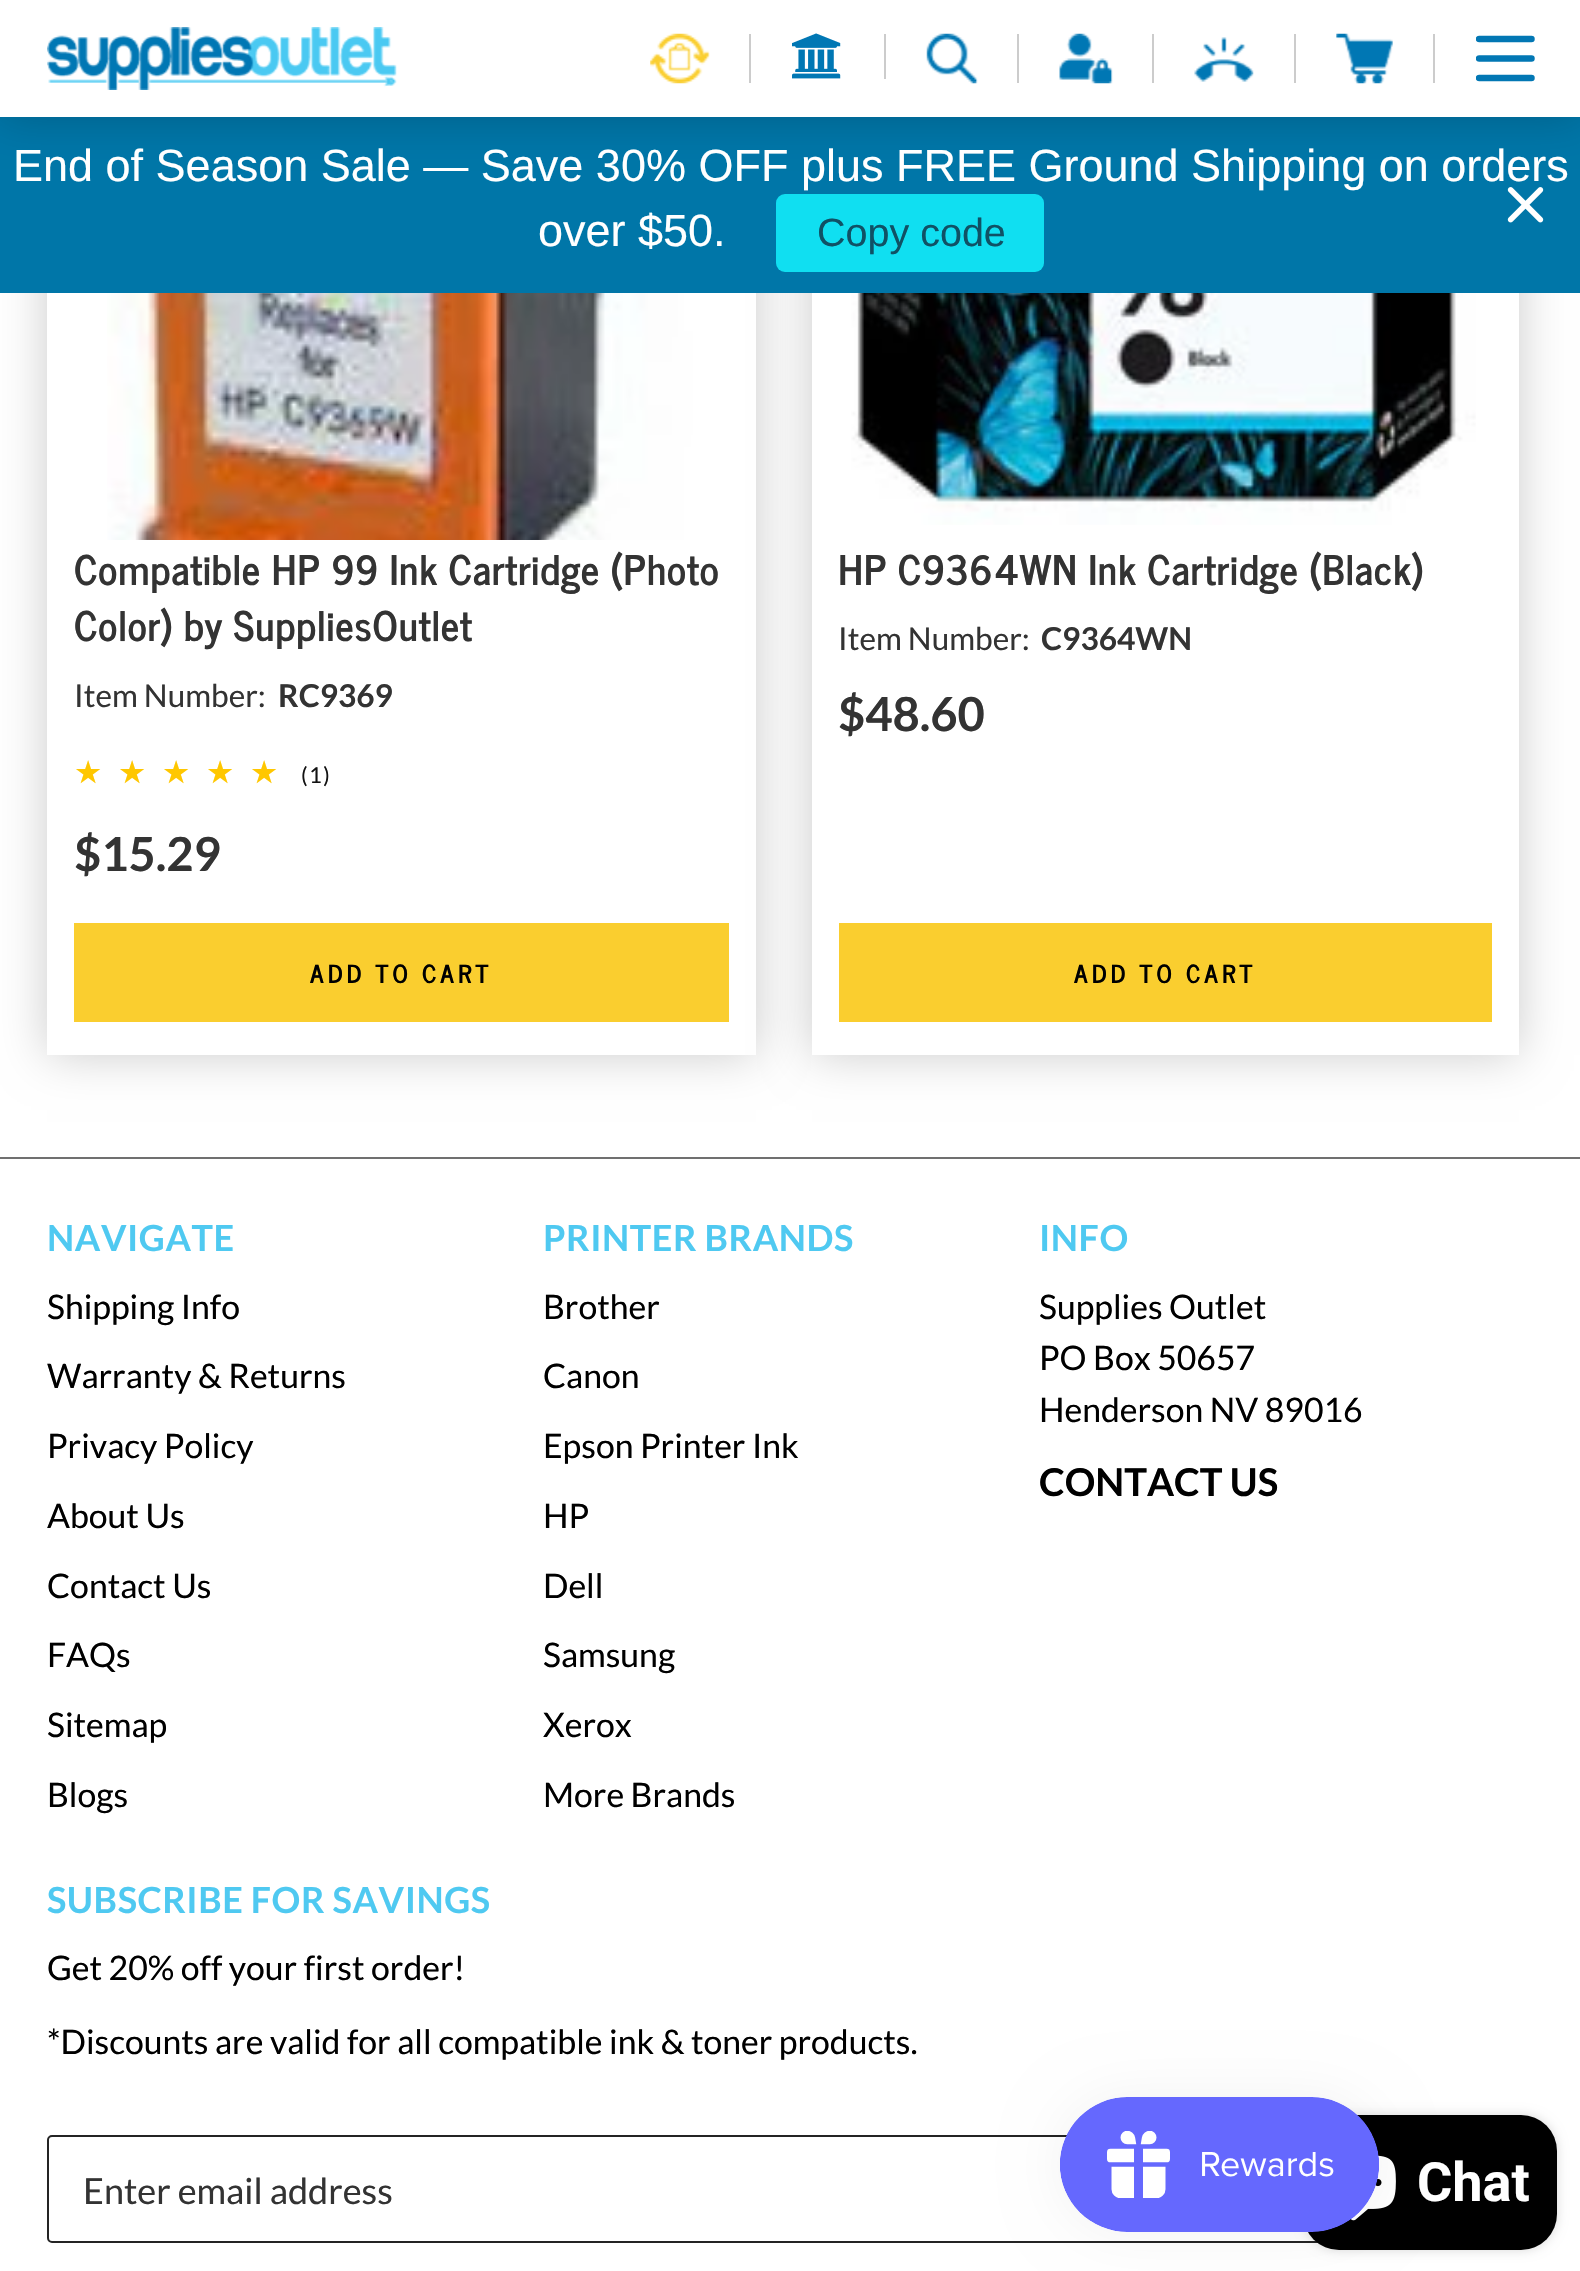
void draw(SkCanvas* canvas) {
    SkPaint paint;
    paint.setAntiAlias(true);
    auto spacedText = [&](const char* s, float x, float y, const SkFont& font, const SkPaint& ink, float letter, float word) {
        std::vector<SkGlyphID> glyphs(font.countText(s, strlen(s), SkTextEncoding::kUTF8));
        std::vector<float> xs(glyphs.size());
        font.textToGlyphs(s, strlen(s), SkTextEncoding::kUTF8, glyphs);
        font.getXPos(glyphs, xs, x);
        float extra = 0;
        for (size_t i = 0; i < glyphs.size(); i++) {
            xs[i] += extra;
            extra += letter + word * (glyphs[i] == font.unicharToGlyph(' '));
        }
        canvas->drawTextBlob(SkTextBlob::MakeFromPosHGlyphs(glyphs, xs, y, font), 0, 0, ink);
    };
    canvas->clear(0xFFFFFFFF);
    paint.setColor(0x33000000);
    paint.setMaskFilter(SkMaskFilter::MakeBlur(kNormal_SkBlurStyle, 22.5f));
    canvas->drawRect(SkRect::MakeXYWH(47, -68, 709, 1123), paint);
    paint.setMaskFilter(nullptr);
    paint.setColor(0xFFFFFFFF);
    canvas->drawRect(SkRect::MakeXYWH(47, 293, 709, 762), paint);
    paint.setColor(0x33000000);
    paint.setMaskFilter(SkMaskFilter::MakeBlur(kNormal_SkBlurStyle, 22.5f));
    canvas->drawRect(SkRect::MakeXYWH(812, -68, 707, 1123), paint);
    paint.setMaskFilter(nullptr);
    paint.setColor(0xFF0076A8);
    canvas->drawRect(SkRect::MakeXYWH(0, 117, 1580, 176), paint);
    paint.setColor(0x33000000);
    paint.setMaskFilter(SkMaskFilter::MakeBlur(kNormal_SkBlurStyle, 22.5f));
    canvas->drawRect(SkRect::MakeXYWH(0, 0, 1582, 117), paint);
    paint.setMaskFilter(nullptr);
    paint.setColor(0xFFFFFFFF);
    canvas->drawRect(SkRect::MakeXYWH(0, 0, 1580, 117), paint);
    canvas->drawImageRect(SkImages::DeferredFromEncodedData(SkData::MakeFromFileName("img1.png")), SkRect::MakeXYWH(47, 27, 350, 63), SkSamplingOptions());
    paint.setColor(0xFFCCCCCC);
    canvas->drawRect(SkRect::MakeXYWH(749, 34, 2, 49), paint);
    canvas->drawImageRect(SkImages::DeferredFromEncodedData(SkData::MakeFromFileName("img2.png")), SkRect::MakeXYWH(650, 33, 60, 51), SkSamplingOptions());
    canvas->drawRect(SkRect::MakeXYWH(884, 34, 2, 45), paint);
    canvas->drawImageRect(SkImages::DeferredFromEncodedData(SkData::MakeFromFileName("img3.png")), SkRect::MakeXYWH(792, 33, 49, 46), SkSamplingOptions());
    canvas->drawRect(SkRect::MakeXYWH(1017, 34, 2, 49), paint);
    canvas->drawImageRect(SkImages::DeferredFromEncodedData(SkData::MakeFromFileName("img4.png")), SkRect::MakeXYWH(926, 33, 52, 51), SkSamplingOptions());
    canvas->drawRect(SkRect::MakeXYWH(1152, 34, 2, 49), paint);
    canvas->drawImageRect(SkImages::DeferredFromEncodedData(SkData::MakeFromFileName("img5.png")), SkRect::MakeXYWH(1059, 33, 54, 51), SkSamplingOptions());
    canvas->drawRect(SkRect::MakeXYWH(1294, 34, 2, 49), paint);
    canvas->drawImageRect(SkImages::DeferredFromEncodedData(SkData::MakeFromFileName("img6.png")), SkRect::MakeXYWH(1194, 37, 60, 45), SkSamplingOptions());
    canvas->drawRect(SkRect::MakeXYWH(1433, 34, 2, 49), paint);
    canvas->drawImageRect(SkImages::DeferredFromEncodedData(SkData::MakeFromFileName("img7.png")), SkRect::MakeXYWH(1336, 33, 57, 51), SkSamplingOptions());
    canvas->save();
    canvas->clipRect(SkRect::MakeXYWH(1476, 34, 59, 49));
    paint.setStyle(SkPaint::kStroke_Style);
    paint.setStrokeWidth(6.5f);
    paint.setStrokeCap(SkPaint::kRound_Cap);
    paint.setColor(0xFF0277B4);
    canvas->drawPath(SkPathBuilder().moveTo(1479, 78).lineTo(1531.5f, 78).moveTo(1479, 58.5f).lineTo(1531.5f, 58.5f).moveTo(1479, 39).lineTo(1531.5f, 39).detach(), paint);
    canvas->restore();
    SkFont font1(fontMgr->matchFamilyStyle("Liberation Sans", SkFontStyle::Normal()), 45);
    font1.setSubpixel(true);
    paint.setStyle(SkPaint::kFill_Style);
    paint.setColor(0xFFFFFFFF);
    canvas->drawString("End of Season Sale — Save 30% OFF plus FREE Ground Shipping on orders", 13, 181, font1, paint);
    canvas->drawString("over $50.", 538, 246, font1, paint);
    paint.setColor(0xFF10DFF1);
    canvas->drawRoundRect(SkRect::MakeXYWH(776, 194, 268, 78), 9, 9, paint);
    SkFont font2(fontMgr->matchFamilyStyle("Liberation Sans", SkFontStyle::Normal()), 39.5f);
    font2.setSubpixel(true);
    paint.setColor(0xFF105165);
    canvas->drawString("Copy code", 817, 246, font2, paint);
    canvas->drawImageRect(SkImages::DeferredFromEncodedData(SkData::MakeFromFileName("img8.png")), SkRect::MakeXYWH(1507, 187, 37, 36), SkSamplingOptions());
    canvas->drawImageRect(SkImages::DeferredFromEncodedData(SkData::MakeFromFileName("img9.png")), SkRect::MakeXYWH(107, 293, 586, 247), SkSamplingOptions());
    SkFont font3(fontMgr->matchFamilyStyle("News Cycle", SkFontStyle::Bold()), 40.5f);
    font3.setSubpixel(true);
    paint.setColor(0xFF333333);
    spacedText("Compatible HP 99 Ink Cartridge (Photo", 74, 585, font3, paint, 0.55f, 0);
    spacedText("Color) by SuppliesOutlet", 74, 641, font3, paint, 0.55f, 0);
    SkFont font4(fontMgr->matchFamilyStyle("Lato", SkFontStyle::Normal()), 31.5f);
    font4.setSubpixel(true);
    canvas->drawString("Item Number:", 74, 707, font4, paint);
    SkFont font5(fontMgr->matchFamilyStyle("Lato", SkFontStyle::Bold()), 31.5f);
    font5.setSubpixel(true);
    canvas->drawString("RC9369", 278, 707, font5, paint);
    SkFont font6(fontMgr->matchFamilyStyle("DejaVu Sans", SkFontStyle::Normal()), 31.5f);
    font6.setSubpixel(true);
    {
        const SkColor colors[] = {0xFFFFC700, 0xFFDBDBDB};
        const float stops[] = {1, 1};
        const SkPoint ends[] = {{74, 773}, {294, 773}};
        paint.setShader(SkGradientShader::MakeLinear(ends, colors, stops, 2, SkTileMode::kClamp));
        paint.setAlpha(255);
    }
    spacedText("★★★★★", 74, 783, font6, paint, 15.75f, 0);
    SkFont font7(fontMgr->matchFamilyStyle("Lato", SkFontStyle::Normal()), 22);
    font7.setSubpixel(true);
    paint.setShader(nullptr);
    paint.setColor(0xFF121212);
    spacedText("(1)", 301, 783, font7, paint, 1.5f, 0);
    SkFont font8(fontMgr->matchFamilyStyle("Lato", SkFontStyle::Bold()), 47);
    font8.setSubpixel(true);
    paint.setColor(0xFF333333);
    canvas->drawString("$15.29", 74, 871, font8, paint);
    paint.setColor(0xFFFACE2F);
    canvas->drawRect(SkRect::MakeXYWH(74, 923, 655, 99), paint);
    SkFont font9(fontMgr->matchFamilyStyle("News Cycle", SkFontStyle::Bold()), 24.75f);
    font9.setSubpixel(true);
    paint.setColor(0xFF000000);
    spacedText("ADD TO CART", 310, 983, font9, paint, 4, 0);
    paint.setColor(0xFFFFFFFF);
    canvas->drawRect(SkRect::MakeXYWH(812, 293, 707, 762), paint);
    canvas->drawImageRect(SkImages::DeferredFromEncodedData(SkData::MakeFromFileName("img10.png")), SkRect::MakeXYWH(851, 293, 625, 232), SkSamplingOptions());
    paint.setColor(0xFF333333);
    spacedText("HP C9364WN Ink Cartridge (Black)", 838, 585, font3, paint, 0.55f, 0);
    canvas->drawString("Item Number:", 838, 650, font4, paint);
    canvas->drawString("C9364WN", 1041, 650, font5, paint);
    canvas->drawString("$48.60", 838, 731, font8, paint);
    paint.setColor(0xFFFACE2F);
    canvas->drawRect(SkRect::MakeXYWH(839, 923, 653, 99), paint);
    paint.setColor(0xFF000000);
    spacedText("ADD TO CART", 1074, 983, font9, paint, 4, 0);
    paint.setColor(0xFF707070);
    canvas->drawRect(SkRect::MakeXYWH(0, 1157, 1580, 2), paint);
    SkFont font10(fontMgr->matchFamilyStyle("Lato", SkFontStyle::Bold()), 36);
    font10.setSubpixel(true);
    paint.setColor(0xFF4FC9F1);
    spacedText("NAVIGATE", 47, 1251, font10, paint, 0.55f, 0);
    SkFont font11(fontMgr->matchFamilyStyle("Lato", SkFontStyle::Normal()), 33.75f);
    font11.setSubpixel(true);
    paint.setColor(0xFF000000);
    canvas->drawString("Shipping Info", 47, 1319, font11, paint);
    canvas->drawString("Warranty & Returns", 47, 1388, font11, paint);
    canvas->drawString("Privacy Policy", 47, 1458, font11, paint);
    canvas->drawString("About Us", 47, 1528, font11, paint);
    canvas->drawString("Contact Us", 47, 1598, font11, paint);
    canvas->drawString("FAQs", 47, 1667, font11, paint);
    canvas->drawString("Sitemap", 47, 1737, font11, paint);
    canvas->drawString("Blogs", 47, 1807, font11, paint);
    paint.setColor(0xFF4FC9F1);
    spacedText("PRINTER BRANDS", 543, 1251, font10, paint, 0.55f, 0);
    paint.setColor(0xFF000000);
    canvas->drawString("Brother", 543, 1319, font11, paint);
    canvas->drawString("Canon", 543, 1388, font11, paint);
    canvas->drawString("Epson Printer Ink", 543, 1458, font11, paint);
    canvas->drawString("HP", 543, 1528, font11, paint);
    canvas->drawString("Dell", 543, 1598, font11, paint);
    canvas->drawString("Samsung", 543, 1667, font11, paint);
    canvas->drawString("Xerox", 543, 1737, font11, paint);
    canvas->drawString("More Brands", 543, 1807, font11, paint);
    paint.setColor(0xFF4FC9F1);
    spacedText("INFO", 1039, 1251, font10, paint, 0.55f, 0);
    paint.setColor(0xFF000000);
    canvas->drawString("Supplies Outlet", 1039, 1319, font11, paint);
    canvas->drawString("PO Box 50657", 1039, 1370, font11, paint);
    canvas->drawString("Henderson NV 89016", 1039, 1422, font11, paint);
    SkFont font12(fontMgr->matchFamilyStyle("Lato", SkFontStyle::Bold()), 38.25f);
    font12.setSubpixel(true);
    canvas->drawString("CONTACT US", 1039, 1496, font12, paint);
    paint.setColor(0xFF4FC9F1);
    spacedText("SUBSCRIBE FOR SAVINGS", 47, 1913, font10, paint, 0.55f, 0);
    paint.setColor(0xFF000000);
    canvas->drawString("Get 20% off your first order!", 47, 1980, font11, paint);
    canvas->drawString("*Discounts are valid for all compatible ink & toner products.", 47, 2054, font11, paint);
    paint.setStyle(SkPaint::kStroke_Style);
    paint.setStrokeWidth(2);
    paint.setStrokeCap(SkPaint::kButt_Cap);
    paint.setColor(0xFF242424);
    canvas->drawRoundRect(SkRect::MakeXYWH(48, 2136, 1281, 106), 4, 4, paint);
    SkFont font13(fontMgr->matchFamilyStyle("Lato", SkFontStyle::Normal()), 36);
    font13.setSubpixel(true);
    paint.setStyle(SkPaint::kFill_Style);
    paint.setColor(0xFF333333);
    canvas->drawString("Enter email address", 83, 2204, font13, paint);
    paint.setColor(0x26000000);
    paint.setMaskFilter(SkMaskFilter::MakeBlur(kNormal_SkBlurStyle, 5.5f));
    canvas->drawRoundRect(SkRect::MakeXYWH(1303, 2115, 254, 135), 36, 36, paint);
    paint.setMaskFilter(nullptr);
    paint.setColor(0xFF000000);
    canvas->drawRoundRect(SkRect::MakeXYWH(1303, 2115, 254, 135), 36, 36, paint);
    canvas->drawImageRect(SkImages::DeferredFromEncodedData(SkData::MakeFromFileName("img12.png")), SkRect::MakeXYWH(1351, 2155, 45, 66), SkSamplingOptions());
    paint.setColor(0x0D000000);
    paint.setMaskFilter(SkMaskFilter::MakeBlur(kNormal_SkBlurStyle, 28));
    canvas->drawRoundRect(SkRect::MakeXYWH(1060, 2097, 319, 135), 67.5f, 67.5f, paint);
    paint.setMaskFilter(nullptr);
    canvas->drawImageRect(SkImages::DeferredFromEncodedData(SkData::MakeFromFileName("img11.png")), SkRect::MakeXYWH(1060, 2097, 319, 135), SkSamplingOptions());
    SkFont font14(fontMgr->matchFamilyStyle("Roboto", SkFontStyle::Bold()), 54);
    font14.setSubpixel(true);
    paint.setColor(0xFFFFFFFF);
    canvas->drawString("Chat", 1417, 2201, font14, paint);
}
